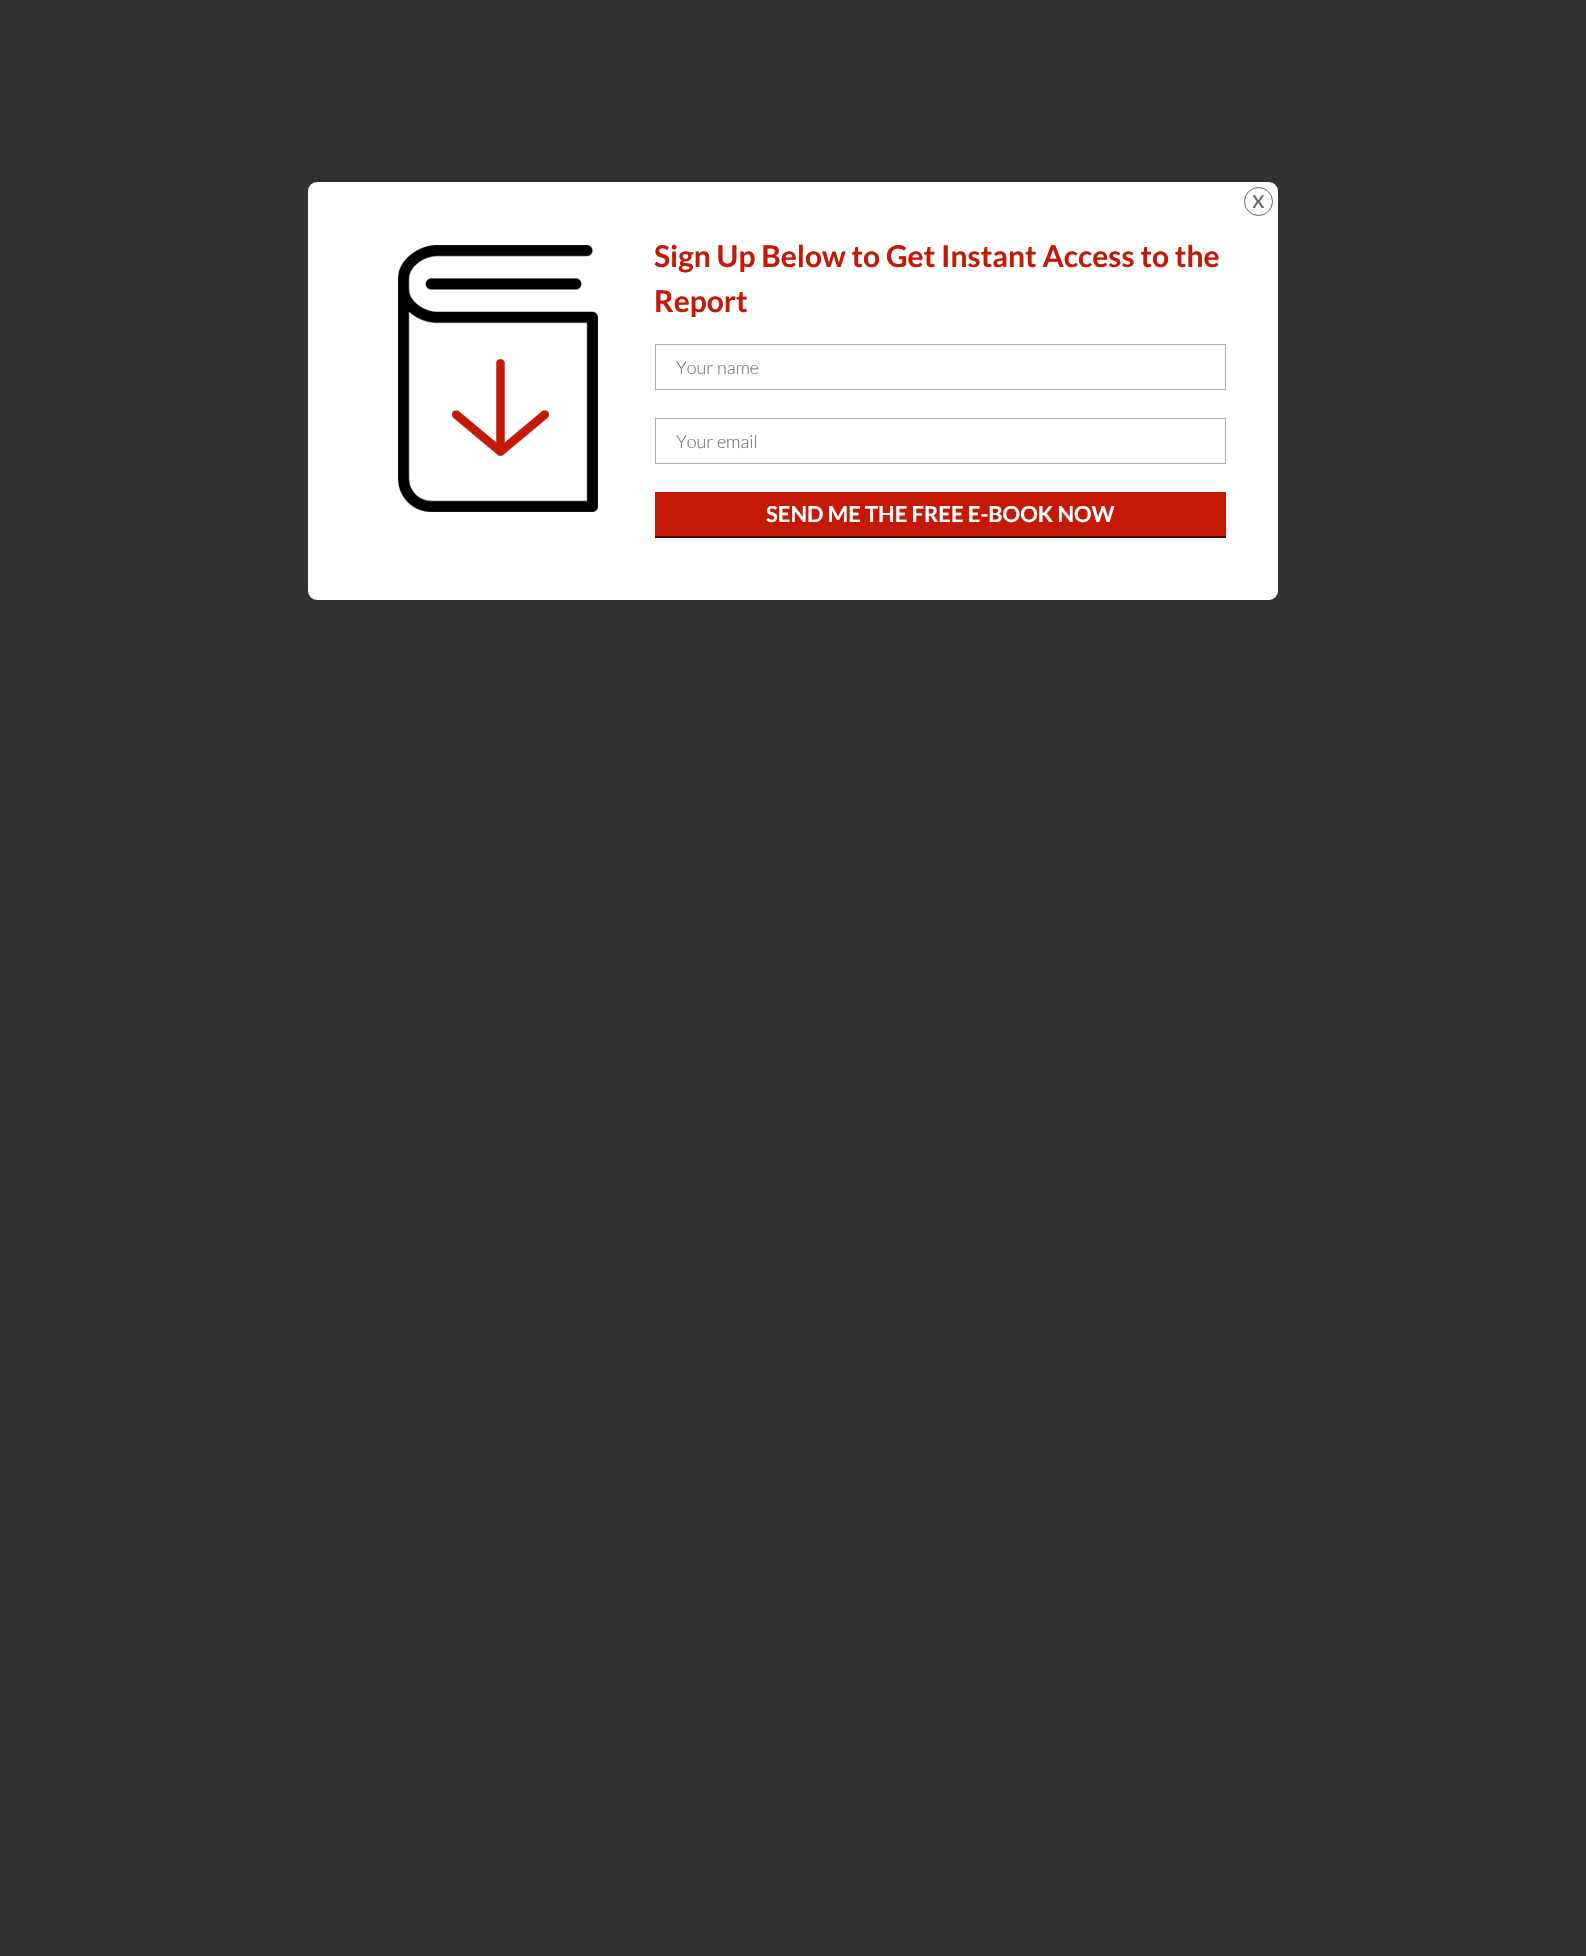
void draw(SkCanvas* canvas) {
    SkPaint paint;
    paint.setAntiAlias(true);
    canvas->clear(0xFF323232);
    paint.setColor(0xFFFFFFFF);
    canvas->drawRoundRect(SkRect::MakeXYWH(308, 182, 970, 418), 9, 9, paint);
    paint.setStyle(SkPaint::kStroke_Style);
    paint.setStrokeWidth(1);
    paint.setColor(0xFF666666);
    canvas->drawCircle(1258.5f, 201.5f, 14, paint);
    SkFont font1(fontMgr->matchFamilyStyle("Lato", SkFontStyle::Normal()), 25);
    font1.setSubpixel(true);
    paint.setStyle(SkPaint::kFill_Style);
    canvas->drawString("x", 1252, 208, font1, paint);
    canvas->drawImageRect(SkImages::DeferredFromEncodedData(SkData::MakeFromFileName("img1.png")), SkRect::MakeXYWH(398, 245, 200, 267), SkSamplingOptions());
    SkFont font2(fontMgr->matchFamilyStyle("Lato", SkFontStyle::Bold()), 30);
    font2.setSubpixel(true);
    paint.setColor(0xFFC41907);
    canvas->drawString("Sign Up Below to Get Instant Access to the", 654, 267, font2, paint);
    canvas->drawString("Report", 654, 312, font2, paint);
    paint.setStyle(SkPaint::kStroke_Style);
    paint.setColor(0xFFAFAFAF);
    canvas->drawRect(SkRect::MakeXYWH(655.5f, 344.5f, 570, 45), paint);
    SkFont font3(fontMgr->matchFamilyStyle("Lato", SkFontStyle(300, SkFontStyle::kNormal_Width, SkFontStyle::kUpright_Slant)), 18);
    font3.setSubpixel(true);
    paint.setStyle(SkPaint::kFill_Style);
    paint.setColor(0xFF707070);
    canvas->drawString("Your name", 676, 374, font3, paint);
    paint.setStyle(SkPaint::kStroke_Style);
    paint.setColor(0xFFAFAFAF);
    canvas->drawRect(SkRect::MakeXYWH(655.5f, 418.5f, 570, 45), paint);
    paint.setStyle(SkPaint::kFill_Style);
    paint.setColor(0xFF707070);
    canvas->drawString("Your email", 676, 448, font3, paint);
    paint.setColor(0xFFC41907);
    canvas->drawRect(SkRect::MakeXYWH(655, 492, 571, 44), paint);
    paint.setColor(0xFF450902);
    canvas->drawRect(SkRect::MakeXYWH(655, 536, 571, 2), paint);
    SkFont font4(fontMgr->matchFamilyStyle("Lato", SkFontStyle::Bold()), 22);
    font4.setSubpixel(true);
    paint.setColor(0xFFFFFFFF);
    canvas->drawString("SEND ME THE FREE E-BOOK NOW", 766, 522, font4, paint);
}
